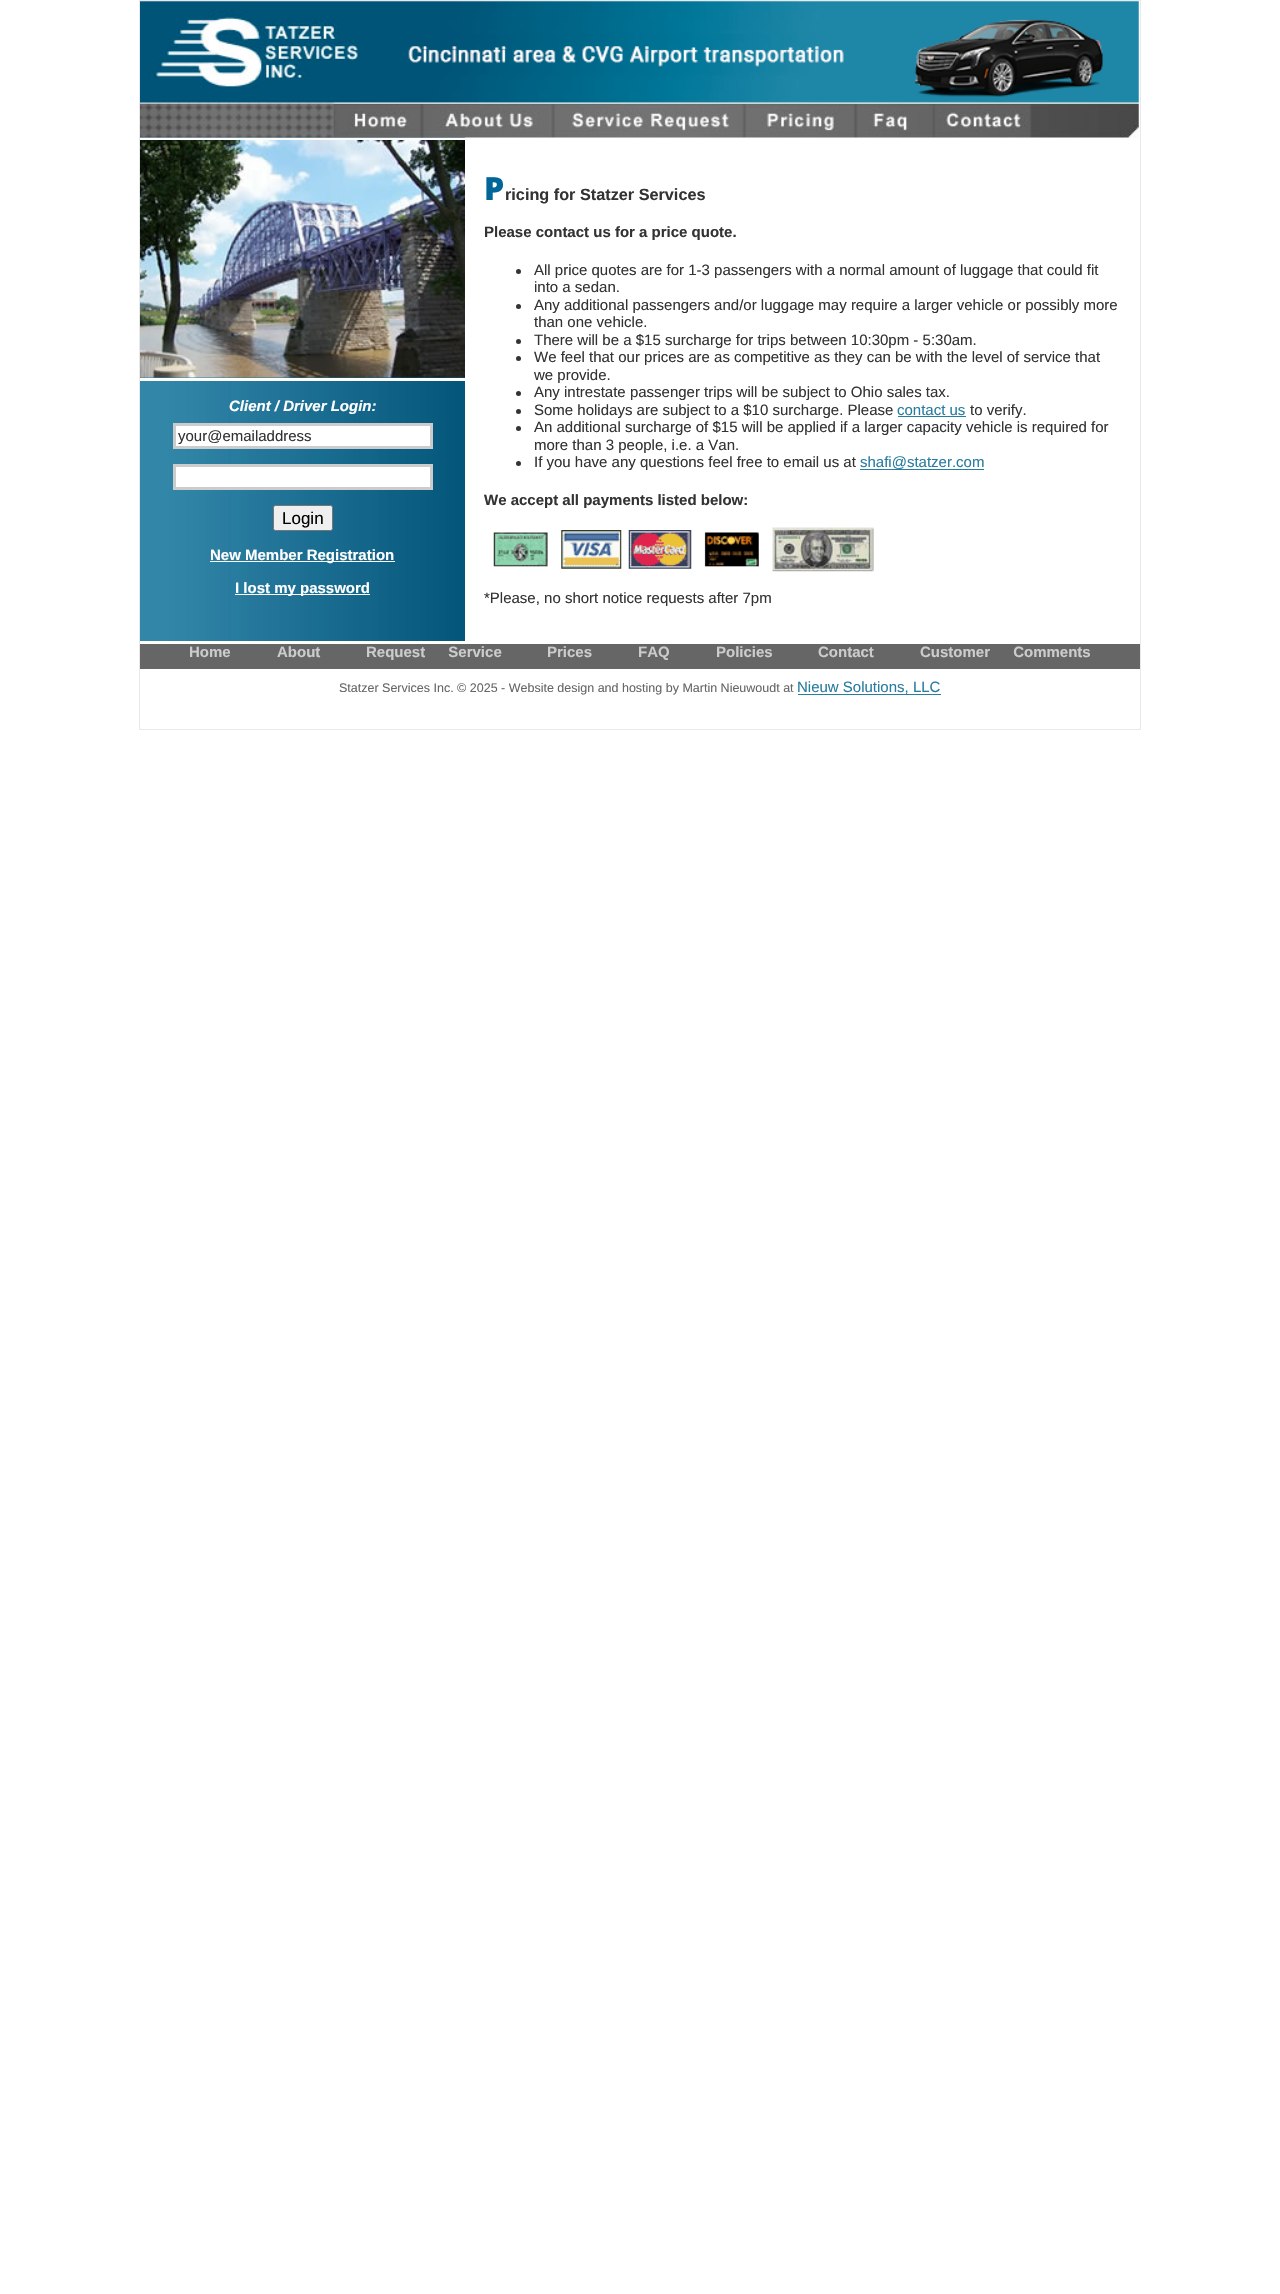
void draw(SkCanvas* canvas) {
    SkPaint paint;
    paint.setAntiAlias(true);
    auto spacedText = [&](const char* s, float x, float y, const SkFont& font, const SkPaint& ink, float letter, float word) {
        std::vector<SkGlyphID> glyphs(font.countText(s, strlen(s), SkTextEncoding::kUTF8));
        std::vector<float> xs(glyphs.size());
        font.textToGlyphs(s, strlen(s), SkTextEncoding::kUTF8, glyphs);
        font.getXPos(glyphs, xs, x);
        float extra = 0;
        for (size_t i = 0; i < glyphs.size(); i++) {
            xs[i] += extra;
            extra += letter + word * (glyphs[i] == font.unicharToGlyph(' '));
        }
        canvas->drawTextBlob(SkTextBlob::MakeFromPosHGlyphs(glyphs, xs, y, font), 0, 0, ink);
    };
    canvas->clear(0xFFFFFFFF);
    paint.setColor(0xFFE8E9EA);
    canvas->drawRect(SkRect::MakeXYWH(139, 0, 1002, 730), paint);
    paint.setColor(0xFFFFFFFF);
    canvas->drawRect(SkRect::MakeXYWH(140, 1, 1000, 728), paint);
    canvas->drawImageRect(SkImages::DeferredFromEncodedData(SkData::MakeFromFileName("img2.png")), SkRect::MakeXYWH(140, 137, 325, 504), SkSamplingOptions());
    canvas->drawImageRect(SkImages::DeferredFromEncodedData(SkData::MakeFromFileName("img1.png")), SkRect::MakeXYWH(140, 1, 999, 137), SkSamplingOptions());
    canvas->drawRect(SkRect::MakeXYWH(140, 138, 325, 2), paint);
    canvas->drawImageRect(SkImages::DeferredFromEncodedData(SkData::MakeFromFileName("img3.png")), SkRect::MakeXYWH(140, 140, 325, 238), SkSamplingOptions());
    canvas->drawRect(SkRect::MakeXYWH(140, 378, 325, 3), paint);
    SkFont font1(fontMgr->matchFamilyStyle("Liberation Sans", SkFontStyle::BoldItalic()), 15);
    font1.setSubpixel(true);
    canvas->drawString("Client / Driver Login:", 229, 411, font1, paint);
    canvas->drawRect(SkRect::MakeXYWH(174.5f, 424.5f, 257, 23), paint);
    paint.setStyle(SkPaint::kStroke_Style);
    paint.setStrokeWidth(3);
    paint.setColor(0xFFCCCCCC);
    canvas->drawRect(SkRect::MakeXYWH(174.5f, 424.5f, 257, 23), paint);
    SkFont font2(fontMgr->matchFamilyStyle("Liberation Sans", SkFontStyle::Normal()), 15);
    font2.setSubpixel(true);
    paint.setStyle(SkPaint::kFill_Style);
    paint.setColor(0xFF333333);
    canvas->drawString("your@emailaddress", 178, 441, font2, paint);
    paint.setColor(0xFFFFFFFF);
    canvas->drawRect(SkRect::MakeXYWH(174.5f, 465.5f, 257, 23), paint);
    paint.setStyle(SkPaint::kStroke_Style);
    paint.setColor(0xFFCCCCCC);
    canvas->drawRect(SkRect::MakeXYWH(174.5f, 465.5f, 257, 23), paint);
    paint.setStyle(SkPaint::kFill_Style);
    paint.setColor(0xFFEFEFEF);
    canvas->drawRoundRect(SkRect::MakeXYWH(273.5f, 505.5f, 59, 25), 2, 2, paint);
    paint.setStyle(SkPaint::kStroke_Style);
    paint.setStrokeWidth(1);
    paint.setColor(0xFF767676);
    canvas->drawRoundRect(SkRect::MakeXYWH(273.5f, 505.5f, 59, 25), 2, 2, paint);
    SkFont font3(fontMgr->matchFamilyStyle("Liberation Sans", SkFontStyle::Normal()), 17);
    font3.setSubpixel(true);
    paint.setStyle(SkPaint::kFill_Style);
    paint.setColor(0xFF000000);
    canvas->drawString("Login", 282, 524, font3, paint);
    paint.setColor(0xFFFFFFFF);
    canvas->drawRect(SkRect::MakeXYWH(210, 561, 185, 1), paint);
    SkFont font4(fontMgr->matchFamilyStyle("Liberation Sans", SkFontStyle::Bold()), 15);
    font4.setSubpixel(true);
    canvas->drawString("New Member Registration", 210, 560, font4, paint);
    canvas->drawRect(SkRect::MakeXYWH(235, 594, 135, 1), paint);
    canvas->drawString("I lost my password", 235, 593, font4, paint);
    SkFont font5(fontMgr->matchFamilyStyle("Noto Sans", SkFontStyle(900, SkFontStyle::kNormal_Width, SkFontStyle::kUpright_Slant)), 32);
    font5.setSubpixel(true);
    paint.setColor(0xFF006699);
    canvas->drawString("P", 484, 200, font5, paint);
    SkFont font6(fontMgr->matchFamilyStyle("Liberation Sans", SkFontStyle::Bold()), 16.25f);
    font6.setSubpixel(true);
    paint.setColor(0xFF333333);
    canvas->drawString("ricing for Statzer Services", 505, 200, font6, paint);
    canvas->drawString("Please contact us for a price quote.", 484, 237, font4, paint);
    canvas->drawCircle(518.5f, 271.5f, 2.5f, paint);
    canvas->drawString("All price quotes are for 1-3 passengers with a normal amount of luggage that could fit", 534, 275, font2, paint);
    canvas->drawString("into a sedan.", 534, 292, font2, paint);
    canvas->drawCircle(518.5f, 306.5f, 2.5f, paint);
    canvas->drawString("Any additional passengers and/or luggage may require a larger vehicle or possibly more", 534, 310, font2, paint);
    canvas->drawString("than one vehicle.", 534, 327, font2, paint);
    canvas->drawCircle(518.5f, 341.5f, 2.5f, paint);
    canvas->drawString("There will be a $15 surcharge for trips between 10:30pm - 5:30am.", 534, 345, font2, paint);
    canvas->drawCircle(518.5f, 358.5f, 2.5f, paint);
    canvas->drawString("We feel that our prices are as competitive as they can be with the level of service that", 534, 362, font2, paint);
    canvas->drawString("we provide.", 534, 380, font2, paint);
    canvas->drawCircle(518.5f, 393.5f, 2.5f, paint);
    canvas->drawString("Any intrestate passenger trips will be subject to Ohio sales tax.", 534, 397, font2, paint);
    canvas->drawCircle(518.5f, 411.5f, 2.5f, paint);
    canvas->drawString("Some holidays are subject to a $10 surcharge. Please", 534, 415, font2, paint);
    paint.setColor(0xFF287CA0);
    canvas->drawString("contact us", 897, 415, font2, paint);
    canvas->drawRect(SkRect::MakeXYWH(898, 416, 68, 1), paint);
    paint.setColor(0xFF333333);
    canvas->drawString("to verify.", 970, 415, font2, paint);
    canvas->drawCircle(518.5f, 428.5f, 2.5f, paint);
    canvas->drawString("An additional surcharge of $15 will be applied if a larger capacity vehicle is required for", 534, 432, font2, paint);
    canvas->drawString("more than 3 people, i.e. a Van.", 534, 450, font2, paint);
    canvas->drawCircle(518.5f, 463.5f, 2.5f, paint);
    canvas->drawString("If you have any questions feel free to email us at", 534, 467, font2, paint);
    paint.setColor(0xFF287CA0);
    canvas->drawRect(SkRect::MakeXYWH(860, 469, 124, 1), paint);
    canvas->drawString("shafi@statzer.com", 860, 467, font2, paint);
    paint.setColor(0xFF333333);
    canvas->drawString("We accept all payments listed below:", 484, 505, font4, paint);
    canvas->drawImageRect(SkImages::DeferredFromEncodedData(SkData::MakeFromFileName("img4.png")), SkRect::MakeXYWH(493, 532, 55, 35), SkSamplingOptions());
    canvas->drawImageRect(SkImages::DeferredFromEncodedData(SkData::MakeFromFileName("img5.png")), SkRect::MakeXYWH(561, 530, 61, 39), SkSamplingOptions());
    canvas->drawImageRect(SkImages::DeferredFromEncodedData(SkData::MakeFromFileName("img6.png")), SkRect::MakeXYWH(628, 530, 64, 39), SkSamplingOptions());
    canvas->drawImageRect(SkImages::DeferredFromEncodedData(SkData::MakeFromFileName("img7.png")), SkRect::MakeXYWH(704, 532, 55, 35), SkSamplingOptions());
    canvas->drawImageRect(SkImages::DeferredFromEncodedData(SkData::MakeFromFileName("img8.png")), SkRect::MakeXYWH(772, 527, 102, 45), SkSamplingOptions());
    canvas->drawString("*Please, no short notice requests after 7pm", 484, 603, font2, paint);
    paint.setColor(0xFF666666);
    canvas->drawRect(SkRect::MakeXYWH(140, 644, 1000, 25), paint);
    paint.setColor(0xFFCCCCCC);
    canvas->drawString("Home", 189, 657, font4, paint);
    canvas->drawString("About", 277, 657, font4, paint);
    spacedText("Request Service", 366, 657, font4, paint, 0, 19);
    canvas->drawString("Prices", 547, 657, font4, paint);
    canvas->drawString("FAQ", 638, 657, font4, paint);
    canvas->drawString("Policies", 716, 657, font4, paint);
    canvas->drawString("Contact", 818, 657, font4, paint);
    spacedText("Customer Comments", 920, 657, font4, paint, 0, 19);
    SkFont font7(fontMgr->matchFamilyStyle("Liberation Sans", SkFontStyle::Normal()), 12.5f);
    font7.setSubpixel(true);
    paint.setColor(0xFF666666);
    canvas->drawString("Statzer Services Inc. © 2025 - Website design and hosting by Martin Nieuwoudt at", 339, 692, font7, paint);
    paint.setColor(0xFF287CA0);
    canvas->drawString("Nieuw Solutions, LLC", 797, 692, font2, paint);
    canvas->drawRect(SkRect::MakeXYWH(798, 694, 143, 1), paint);
}
